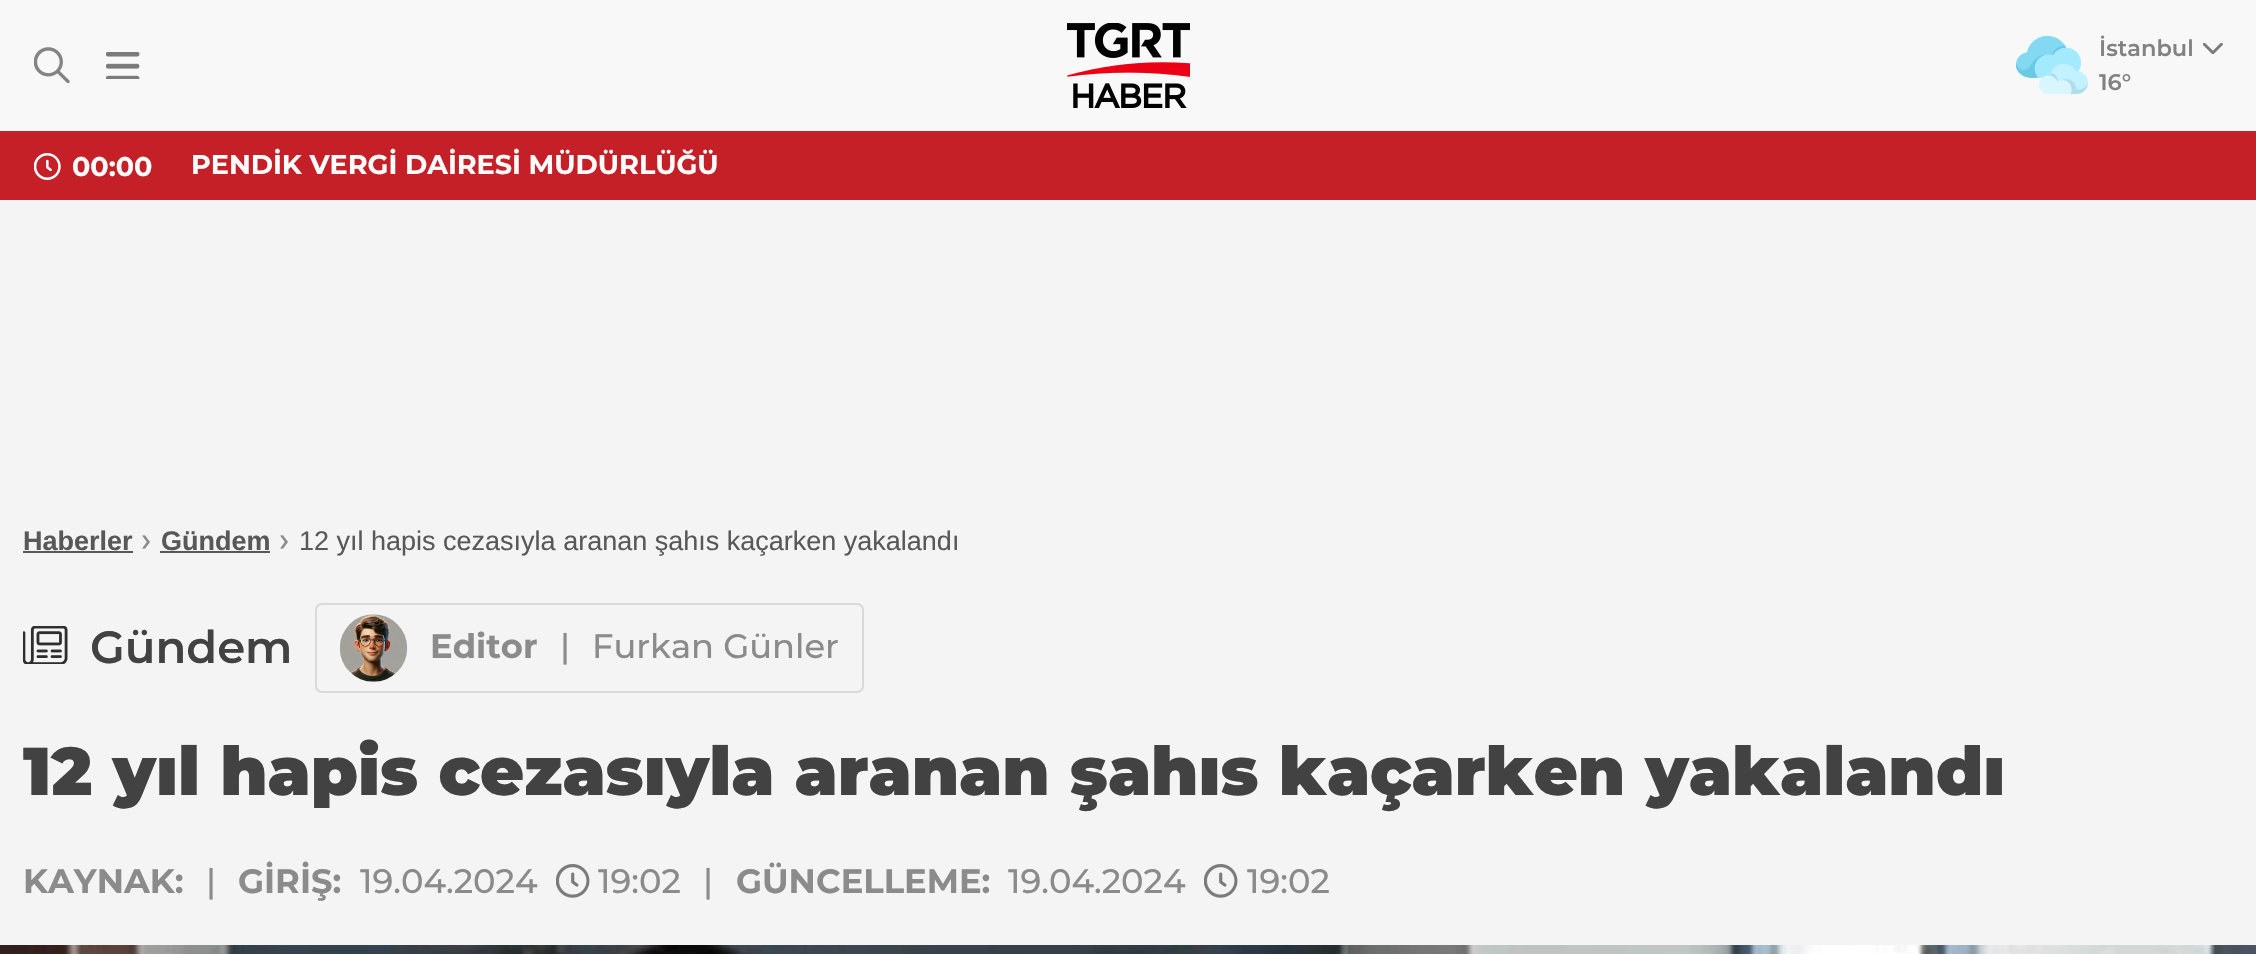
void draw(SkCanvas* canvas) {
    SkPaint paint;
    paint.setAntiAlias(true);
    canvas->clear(0xFFF4F4F4);
    paint.setColor(0xFFF8F8F8);
    canvas->drawRect(SkRect::MakeXYWH(0, 0, 2256, 131), paint);
    canvas->drawImageRect(SkImages::DeferredFromEncodedData(SkData::MakeFromFileName("img1.png")), SkRect::MakeXYWH(34, 47, 36, 36), SkSamplingOptions());
    canvas->drawImageRect(SkImages::DeferredFromEncodedData(SkData::MakeFromFileName("img2.png")), SkRect::MakeXYWH(106, 52, 34, 27), SkSamplingOptions());
    canvas->drawImageRect(SkImages::DeferredFromEncodedData(SkData::MakeFromFileName("img3.png")), SkRect::MakeXYWH(1067, 23, 123, 85), SkSamplingOptions());
    canvas->drawImageRect(SkImages::DeferredFromEncodedData(SkData::MakeFromFileName("img4.png")), SkRect::MakeXYWH(2016, 36, 72, 59), SkSamplingOptions());
    SkFont font1(fontMgr->matchFamilyStyle("Montserrat", SkFontStyle(600, SkFontStyle::kNormal_Width, SkFontStyle::kUpright_Slant)), 22.5f);
    font1.setSubpixel(true);
    paint.setColor(0xFF828282);
    canvas->drawString("İstanbul", 2099, 56, font1, paint);
    canvas->drawImageRect(SkImages::DeferredFromEncodedData(SkData::MakeFromFileName("img5.png")), SkRect::MakeXYWH(2203, 43, 20, 11), SkSamplingOptions());
    canvas->drawString("16°", 2099, 90, font1, paint);
    paint.setColor(0xFFC52027);
    canvas->drawRect(SkRect::MakeXYWH(0, 131, 2256, 69), paint);
    canvas->drawImageRect(SkImages::DeferredFromEncodedData(SkData::MakeFromFileName("img6.png")), SkRect::MakeXYWH(34, 153, 27, 27), SkSamplingOptions());
    SkFont font2(fontMgr->matchFamilyStyle("Montserrat", SkFontStyle::Bold()), 27);
    font2.setSubpixel(true);
    paint.setColor(0xFFFFFFFF);
    canvas->drawString("00:00", 72, 176, font2, paint);
    canvas->drawString("PENDİK VERGİ DAİRESİ MÜDÜRLÜĞÜ", 191, 174, font2, paint);
    SkFont font3(fontMgr->matchFamilyStyle("Liberation Sans", SkFontStyle::Bold()), 27);
    font3.setSubpixel(true);
    paint.setColor(0xFF595859);
    canvas->drawString("Haberler", 23, 550, font3, paint);
    canvas->drawRect(SkRect::MakeXYWH(23, 551, 110, 2), paint);
    SkFont font4(fontMgr->matchFamilyStyle("Montserrat", SkFontStyle(500, SkFontStyle::kNormal_Width, SkFontStyle::kUpright_Slant)), 33.75f);
    font4.setSubpixel(true);
    paint.setColor(0xFF8B8B8B);
    canvas->drawString("›", 141, 551, font4, paint);
    paint.setColor(0xFF595859);
    canvas->drawString("Gündem", 161, 550, font3, paint);
    canvas->drawRect(SkRect::MakeXYWH(160, 551, 110, 2), paint);
    paint.setColor(0xFF8B8B8B);
    canvas->drawString("›", 279, 551, font4, paint);
    SkFont font5(fontMgr->matchFamilyStyle("Liberation Sans", SkFontStyle::Normal()), 27);
    font5.setSubpixel(true);
    paint.setColor(0xFF595859);
    canvas->drawString("12 yıl hapis cezasıyla aranan şahıs kaçarken yakalandı", 299, 550, font5, paint);
    canvas->drawImageRect(SkImages::DeferredFromEncodedData(SkData::MakeFromFileName("img7.png")), SkRect::MakeXYWH(23, 626, 45, 38), SkSamplingOptions());
    SkFont font6(fontMgr->matchFamilyStyle("Montserrat", SkFontStyle(600, SkFontStyle::kNormal_Width, SkFontStyle::kUpright_Slant)), 45);
    font6.setSubpixel(true);
    paint.setColor(0xFF424242);
    canvas->drawString("Gündem", 90, 663, font6, paint);
    paint.setStyle(SkPaint::kStroke_Style);
    paint.setStrokeWidth(2);
    paint.setColor(0xFFD9D9D9);
    canvas->drawRoundRect(SkRect::MakeXYWH(316, 604, 547, 88), 6, 6, paint);
    canvas->drawImageRect(SkImages::DeferredFromEncodedData(SkData::MakeFromFileName("img8.png")), SkRect::MakeXYWH(339, 614, 69, 68), SkSamplingOptions());
    SkFont font7(fontMgr->matchFamilyStyle("Montserrat", SkFontStyle::Bold()), 33.75f);
    font7.setSubpixel(true);
    paint.setStyle(SkPaint::kFill_Style);
    paint.setColor(0xFF8B8B8B);
    canvas->drawString("Editor", 430, 658, font7, paint);
    canvas->drawString("|", 560, 658, font4, paint);
    canvas->drawString("Furkan Günler", 592, 658, font4, paint);
    SkFont font8(fontMgr->matchFamilyStyle("Montserrat", SkFontStyle(900, SkFontStyle::kNormal_Width, SkFontStyle::kUpright_Slant)), 67.5f);
    font8.setSubpixel(true);
    paint.setColor(0xFF424242);
    canvas->drawString("12 yıl hapis cezasıyla aranan şahıs kaçarken yakalandı", 23, 795, font8, paint);
    paint.setColor(0xFF8B8B8B);
    canvas->drawString("KAYNAK:", 23, 893, font7, paint);
    canvas->drawString("|", 206, 893, font4, paint);
    canvas->drawString("GİRİŞ:", 238, 893, font7, paint);
    canvas->drawString("19.04.2024", 360, 893, font4, paint);
    canvas->drawImageRect(SkImages::DeferredFromEncodedData(SkData::MakeFromFileName("img9.png")), SkRect::MakeXYWH(556, 864, 34, 34), SkSamplingOptions());
    canvas->drawString("19:02", 598, 893, font4, paint);
    canvas->drawString("|", 703, 893, font4, paint);
    canvas->drawString("GÜNCELLEME:", 736, 893, font7, paint);
    canvas->drawString("19.04.2024", 1008, 893, font4, paint);
    canvas->drawImageRect(SkImages::DeferredFromEncodedData(SkData::MakeFromFileName("img9.png")), SkRect::MakeXYWH(1204, 864, 34, 34), SkSamplingOptions());
    canvas->drawString("19:02", 1247, 893, font4, paint);
    canvas->drawImageRect(SkImages::DeferredFromEncodedData(SkData::MakeFromFileName("img10.png")), SkRect::MakeXYWH(0, 945, 2256, 9), SkSamplingOptions());
}
